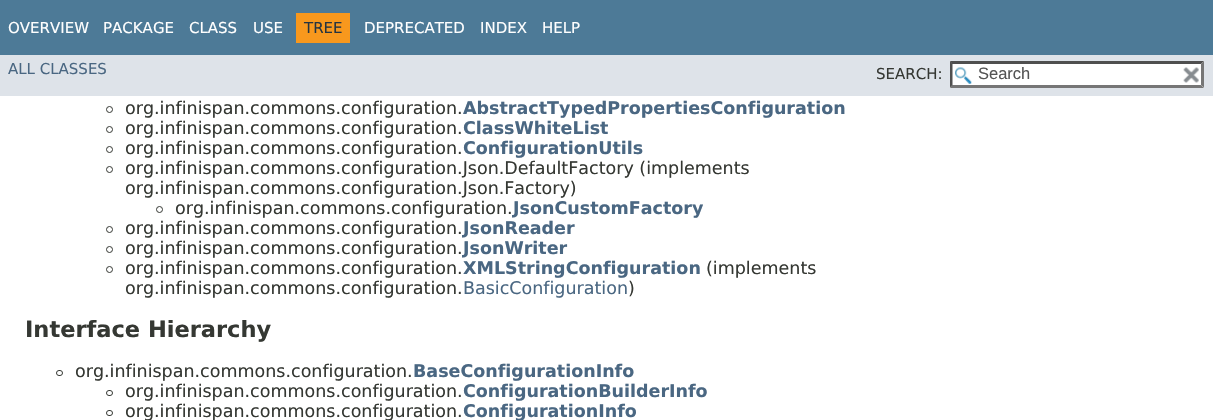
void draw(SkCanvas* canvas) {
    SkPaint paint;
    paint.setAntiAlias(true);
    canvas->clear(0xFFFFFFFF);
    paint.setColor(0xFF4D7A97);
    canvas->drawRect(SkRect::MakeXYWH(0, 0, 1213, 55), paint);
    SkFont font1(fontMgr->matchFamilyStyle("DejaVu Sans", SkFontStyle::Normal()), 15);
    font1.setSubpixel(true);
    paint.setColor(0xFFFFFFFF);
    canvas->drawString("OVERVIEW", 8, 33, font1, paint);
    canvas->drawString("PACKAGE", 103, 33, font1, paint);
    canvas->drawString("CLASS", 189, 33, font1, paint);
    canvas->drawString("USE", 253, 33, font1, paint);
    paint.setColor(0xFFF8981D);
    canvas->drawRect(SkRect::MakeXYWH(296, 13, 54, 30), paint);
    paint.setColor(0xFF253441);
    canvas->drawString("TREE", 304, 33, font1, paint);
    paint.setColor(0xFFFFFFFF);
    canvas->drawString("DEPRECATED", 364, 33, font1, paint);
    canvas->drawString("INDEX", 480, 33, font1, paint);
    canvas->drawString("HELP", 542, 33, font1, paint);
    paint.setColor(0xFFDEE3E9);
    canvas->drawRect(SkRect::MakeXYWH(0, 55, 1213, 41), paint);
    paint.setColor(0xFF4A6782);
    canvas->drawString("ALL CLASSES", 8, 74, font1, paint);
    paint.setColor(0xFF353833);
    canvas->drawString("SEARCH:", 876, 79, font1, paint);
    paint.setColor(0xFFFFFFFF);
    canvas->drawRect(SkRect::MakeXYWH(950, 61, 254, 27), paint);
    canvas->drawImageRect(SkImages::DeferredFromEncodedData(SkData::MakeFromFileName("img1.png")), SkRect::MakeXYWH(955, 67, 17, 17), SkSamplingOptions());
    paint.setColor(0xFF4F4F4F);
    canvas->drawPath(SkPathBuilder().moveTo(950, 61).lineTo(1204, 61).lineTo(1201, 64).lineTo(952, 64).close().detach(), paint);
    paint.setColor(0xFF767676);
    canvas->drawPath(SkPathBuilder().moveTo(1204, 61).lineTo(1204, 87.5f).lineTo(1201, 85).lineTo(1201, 64).close().detach(), paint);
    canvas->drawPath(SkPathBuilder().moveTo(1204, 88).lineTo(950, 88).lineTo(952, 85).lineTo(1201, 85).close().detach(), paint);
    paint.setColor(0xFF4F4F4F);
    canvas->drawPath(SkPathBuilder().moveTo(950, 87.5f).lineTo(950, 61).lineTo(952.5f, 64).lineTo(952.5f, 85).close().detach(), paint);
    SkFont font2(fontMgr->matchFamilyStyle("Liberation Sans", SkFontStyle::Normal()), 16.5f);
    font2.setSubpixel(true);
    paint.setColor(0xFF545454);
    canvas->drawString("Search", 978, 79, font2, paint);
    canvas->drawImageRect(SkImages::DeferredFromEncodedData(SkData::MakeFromFileName("img2.png")), SkRect::MakeXYWH(1183, 67, 16, 16), SkSamplingOptions());
    paint.setStyle(SkPaint::kStroke_Style);
    paint.setStrokeWidth(1);
    paint.setColor(0xFF353833);
    canvas->drawCircle(109.5f, 109.5f, 3, paint);
    SkFont font3(fontMgr->matchFamilyStyle("DejaVu Sans", SkFontStyle::Normal()), 17.5f);
    font3.setSubpixel(true);
    paint.setStyle(SkPaint::kFill_Style);
    canvas->drawString("org.infinispan.commons.configuration.", 125, 114, font3, paint);
    SkFont font4(fontMgr->matchFamilyStyle("DejaVu Sans", SkFontStyle::Bold()), 17.5f);
    font4.setSubpixel(true);
    paint.setColor(0xFF4A6782);
    canvas->drawString("AbstractTypedPropertiesConfiguration", 463, 114, font4, paint);
    paint.setStyle(SkPaint::kStroke_Style);
    paint.setColor(0xFF353833);
    canvas->drawCircle(109.5f, 129.5f, 3, paint);
    paint.setStyle(SkPaint::kFill_Style);
    canvas->drawString("org.infinispan.commons.configuration.", 125, 134, font3, paint);
    paint.setColor(0xFF4A6782);
    canvas->drawString("ClassWhiteList", 463, 134, font4, paint);
    paint.setStyle(SkPaint::kStroke_Style);
    paint.setColor(0xFF353833);
    canvas->drawCircle(109.5f, 149.5f, 3, paint);
    paint.setStyle(SkPaint::kFill_Style);
    canvas->drawString("org.infinispan.commons.configuration.", 125, 154, font3, paint);
    paint.setColor(0xFF4A6782);
    canvas->drawString("ConfigurationUtils", 463, 154, font4, paint);
    paint.setStyle(SkPaint::kStroke_Style);
    paint.setColor(0xFF353833);
    canvas->drawCircle(109.5f, 169.5f, 3, paint);
    paint.setStyle(SkPaint::kFill_Style);
    canvas->drawString("org.infinispan.commons.configuration.Json.DefaultFactory (implements", 125, 174, font3, paint);
    canvas->drawString("org.infinispan.commons.configuration.Json.Factory)", 125, 194, font3, paint);
    paint.setStyle(SkPaint::kStroke_Style);
    canvas->drawCircle(159.5f, 209.5f, 3, paint);
    paint.setStyle(SkPaint::kFill_Style);
    canvas->drawString("org.infinispan.commons.configuration.", 175, 214, font3, paint);
    paint.setColor(0xFF4A6782);
    canvas->drawString("JsonCustomFactory", 513, 214, font4, paint);
    paint.setStyle(SkPaint::kStroke_Style);
    paint.setColor(0xFF353833);
    canvas->drawCircle(109.5f, 229.5f, 3, paint);
    paint.setStyle(SkPaint::kFill_Style);
    canvas->drawString("org.infinispan.commons.configuration.", 125, 234, font3, paint);
    paint.setColor(0xFF4A6782);
    canvas->drawString("JsonReader", 463, 234, font4, paint);
    paint.setStyle(SkPaint::kStroke_Style);
    paint.setColor(0xFF353833);
    canvas->drawCircle(109.5f, 249.5f, 3, paint);
    paint.setStyle(SkPaint::kFill_Style);
    canvas->drawString("org.infinispan.commons.configuration.", 125, 254, font3, paint);
    paint.setColor(0xFF4A6782);
    canvas->drawString("JsonWriter", 463, 254, font4, paint);
    paint.setStyle(SkPaint::kStroke_Style);
    paint.setColor(0xFF353833);
    canvas->drawCircle(109.5f, 269.5f, 3, paint);
    paint.setStyle(SkPaint::kFill_Style);
    canvas->drawString("org.infinispan.commons.configuration.", 125, 274, font3, paint);
    paint.setColor(0xFF4A6782);
    canvas->drawString("XMLStringConfiguration", 463, 274, font4, paint);
    paint.setColor(0xFF353833);
    canvas->drawString("(implements", 706, 274, font3, paint);
    canvas->drawString("org.infinispan.commons.configuration.", 125, 294, font3, paint);
    paint.setColor(0xFF4A6782);
    canvas->drawString("BasicConfiguration", 463, 294, font3, paint);
    paint.setColor(0xFF353833);
    canvas->drawString(")", 628, 294, font3, paint);
    SkFont font5(fontMgr->matchFamilyStyle("DejaVu Sans", SkFontStyle::Bold()), 22.5f);
    font5.setSubpixel(true);
    canvas->drawString("Interface Hierarchy", 25, 337, font5, paint);
    paint.setStyle(SkPaint::kStroke_Style);
    canvas->drawRoundRect(SkRect::MakeXYWH(56.5f, 370.5f, 6, 5), 2.5f, 2.5f, paint);
    paint.setStyle(SkPaint::kFill_Style);
    canvas->drawString("org.infinispan.commons.configuration.", 75, 377, font3, paint);
    paint.setColor(0xFF4A6782);
    canvas->drawString("BaseConfigurationInfo", 413, 377, font4, paint);
    paint.setStyle(SkPaint::kStroke_Style);
    paint.setColor(0xFF353833);
    canvas->drawRoundRect(SkRect::MakeXYWH(106.5f, 390.5f, 6, 5), 2.5f, 2.5f, paint);
    paint.setStyle(SkPaint::kFill_Style);
    canvas->drawString("org.infinispan.commons.configuration.", 125, 397, font3, paint);
    paint.setColor(0xFF4A6782);
    canvas->drawString("ConfigurationBuilderInfo", 463, 397, font4, paint);
    paint.setStyle(SkPaint::kStroke_Style);
    paint.setColor(0xFF353833);
    canvas->drawRoundRect(SkRect::MakeXYWH(106.5f, 410.5f, 6, 5), 2.5f, 2.5f, paint);
    paint.setStyle(SkPaint::kFill_Style);
    canvas->drawString("org.infinispan.commons.configuration.", 125, 417, font3, paint);
    paint.setColor(0xFF4A6782);
    canvas->drawString("ConfigurationInfo", 463, 417, font4, paint);
}
